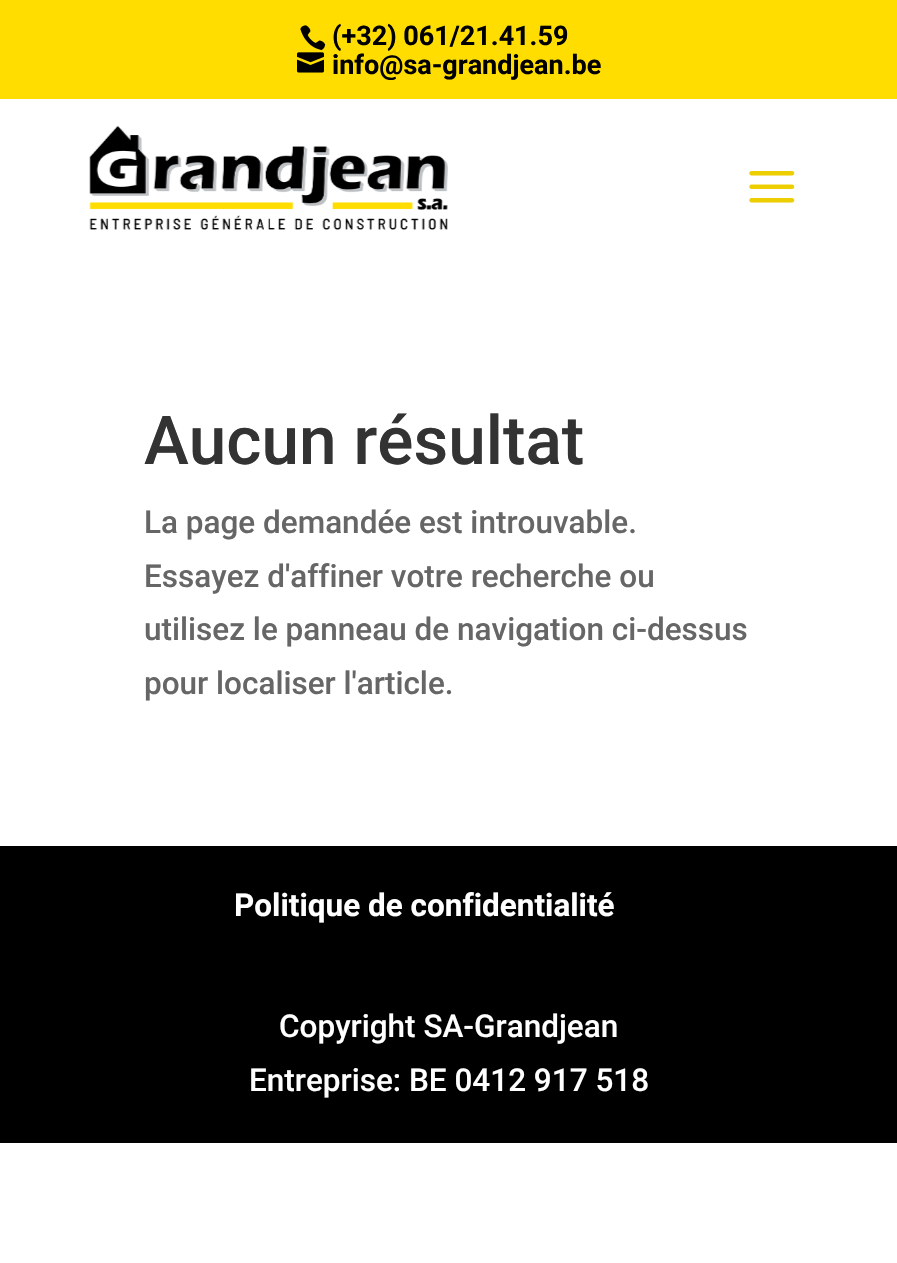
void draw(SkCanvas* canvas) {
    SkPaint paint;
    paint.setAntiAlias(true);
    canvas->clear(0xFFFFFFFF);
    paint.setColor(0xFFFFDD00);
    canvas->drawRect(SkRect::MakeXYWH(0, 0, 897, 99), paint);
    canvas->drawImageRect(SkImages::DeferredFromEncodedData(SkData::MakeFromFileName("img1.png")), SkRect::MakeXYWH(300, 25, 26, 26), SkSamplingOptions());
    SkFont font1(fontMgr->matchFamilyStyle("Roboto", SkFontStyle::Bold()), 27);
    font1.setSubpixel(true);
    paint.setColor(0xFF000000);
    canvas->drawString("(+32) 061/21.41.59", 332, 45, font1, paint);
    canvas->drawImageRect(SkImages::DeferredFromEncodedData(SkData::MakeFromFileName("img2.png")), SkRect::MakeXYWH(297, 52, 27, 21), SkSamplingOptions());
    canvas->drawString("info@sa-grandjean.be", 332, 74, font1, paint);
    canvas->drawImageRect(SkImages::DeferredFromEncodedData(SkData::MakeFromFileName("img3.png")), SkRect::MakeXYWH(89, 126, 359, 104), SkSamplingOptions());
    canvas->drawImageRect(SkImages::DeferredFromEncodedData(SkData::MakeFromFileName("img4.png")), SkRect::MakeXYWH(749, 171, 46, 32), SkSamplingOptions());
    SkFont font2(fontMgr->matchFamilyStyle("Roboto", SkFontStyle(500, SkFontStyle::kNormal_Width, SkFontStyle::kUpright_Slant)), 67.5f);
    font2.setSubpixel(true);
    paint.setColor(0xFF333333);
    canvas->drawString("Aucun résultat", 144, 464, font2, paint);
    SkFont font3(fontMgr->matchFamilyStyle("Roboto", SkFontStyle(500, SkFontStyle::kNormal_Width, SkFontStyle::kUpright_Slant)), 31.5f);
    font3.setSubpixel(true);
    paint.setColor(0xFF666666);
    canvas->drawString("La page demandée est introuvable.", 144, 533, font3, paint);
    canvas->drawString("Essayez d'affiner votre recherche ou", 144, 587, font3, paint);
    canvas->drawString("utilisez le panneau de navigation ci-dessus", 144, 640, font3, paint);
    canvas->drawString("pour localiser l'article.", 144, 694, font3, paint);
    paint.setColor(0xFF000000);
    canvas->drawRect(SkRect::MakeXYWH(0, 846, 897, 297), paint);
    SkFont font4(fontMgr->matchFamilyStyle("Roboto", SkFontStyle::Bold()), 31.5f);
    font4.setSubpixel(true);
    paint.setColor(0xFFFFFFFF);
    canvas->drawString("Politique de confidentialité", 234, 916, font4, paint);
    canvas->drawString("Copyright SA-Grandjean", 279, 1037, font3, paint);
    canvas->drawString("Entreprise: BE 0412 917 518", 249, 1091, font3, paint);
}
